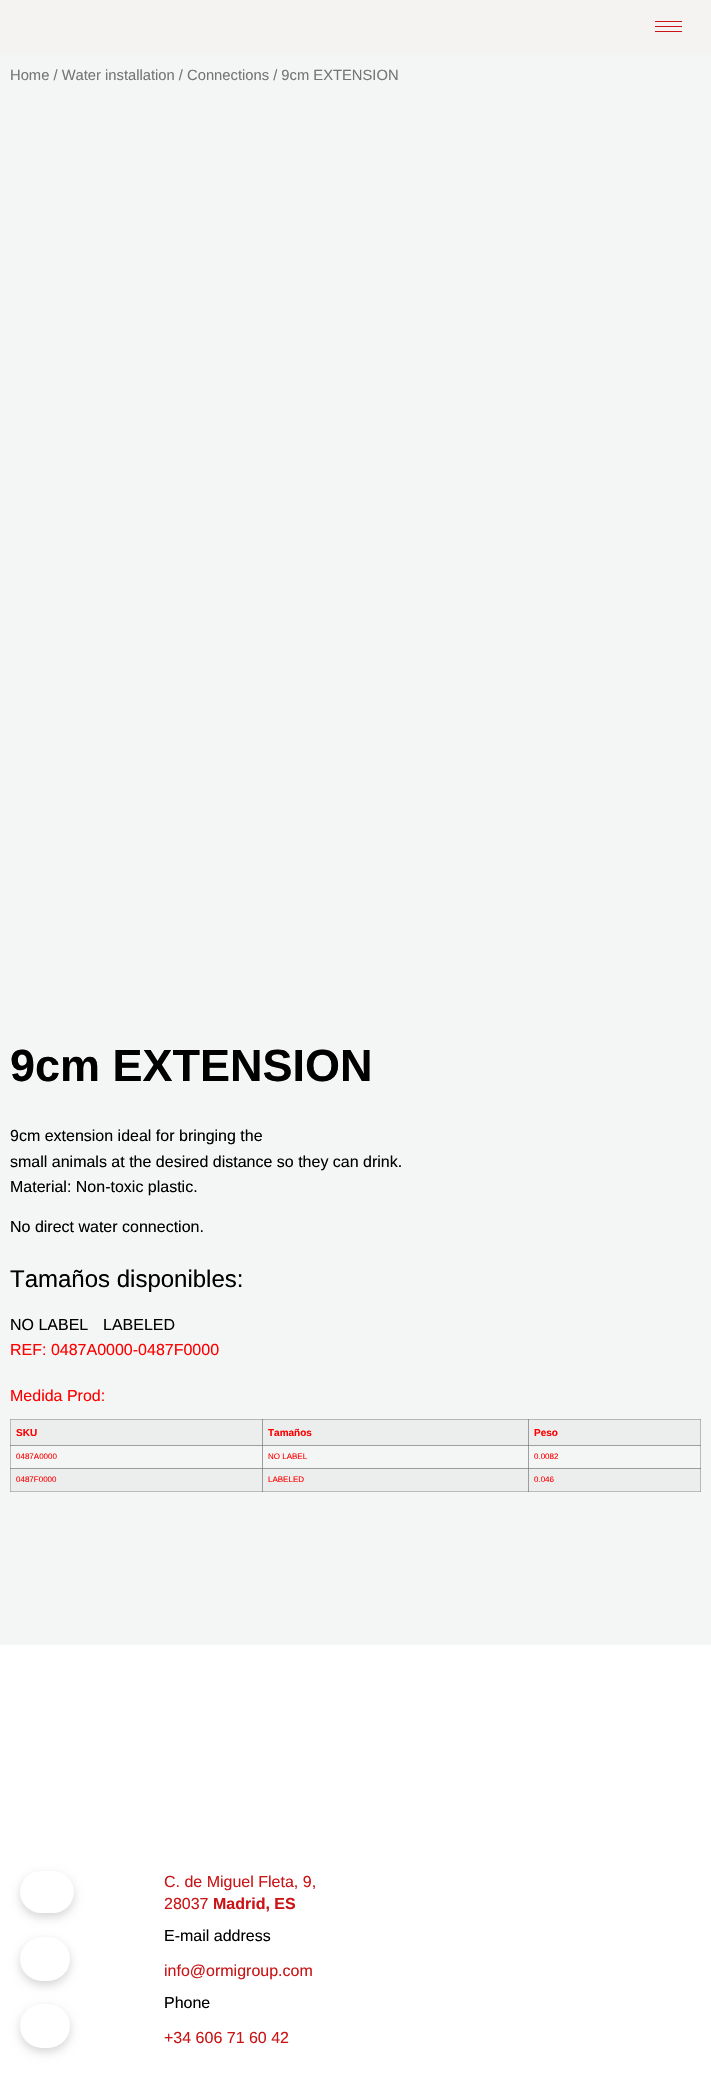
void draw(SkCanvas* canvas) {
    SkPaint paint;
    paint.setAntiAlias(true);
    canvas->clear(0xFFF4F5F5);
    paint.setColor(0xFFBABBBB);
    canvas->drawRect(SkRect::MakeXYWH(10, 1419, 1, 73), paint);
    paint.setColor(0xFF9D9E9E);
    canvas->drawRect(SkRect::MakeXYWH(10, 1419, 1, 1), paint);
    canvas->drawRect(SkRect::MakeXYWH(10, 1445, 253, 1), paint);
    paint.setColor(0xFF888888);
    canvas->drawRect(SkRect::MakeXYWH(10, 1445, 1, 1), paint);
    paint.setColor(0xFF9D9E9E);
    canvas->drawRect(SkRect::MakeXYWH(262, 1445, 1, 24), paint);
    canvas->drawRect(SkRect::MakeXYWH(262, 1445, 267, 1), paint);
    paint.setColor(0xFF818181);
    canvas->drawRect(SkRect::MakeXYWH(262, 1445, 1, 1), paint);
    paint.setColor(0xFF9D9E9E);
    canvas->drawRect(SkRect::MakeXYWH(528, 1445, 1, 24), paint);
    paint.setColor(0xFFBABBBB);
    canvas->drawRect(SkRect::MakeXYWH(700, 1445, 1, 24), paint);
    canvas->drawRect(SkRect::MakeXYWH(10, 1491, 691, 1), paint);
    paint.setColor(0xFF9D9E9E);
    canvas->drawRect(SkRect::MakeXYWH(10, 1491, 1, 1), paint);
    paint.setColor(0xFF888888);
    canvas->drawRect(SkRect::MakeXYWH(10, 1468, 1, 1), paint);
    canvas->drawRect(SkRect::MakeXYWH(262, 1491, 1, 1), paint);
    canvas->drawRect(SkRect::MakeXYWH(528, 1491, 1, 1), paint);
    paint.setColor(0xFF9D9E9E);
    canvas->drawRect(SkRect::MakeXYWH(700, 1491, 1, 1), paint);
    paint.setColor(0xFFF5F2F2);
    canvas->drawRect(SkRect::MakeXYWH(0, 0, 711, 53), paint);
    paint.setColor(0xFFCA1517);
    canvas->drawRect(SkRect::MakeXYWH(655, 21, 27, 1), paint);
    canvas->drawRect(SkRect::MakeXYWH(655, 26, 27, 1), paint);
    canvas->drawRect(SkRect::MakeXYWH(655, 31, 27, 1), paint);
    SkFont font1(fontMgr->matchFamilyStyle("Liberation Sans", SkFontStyle::Normal()), 14.75f);
    font1.setSubpixel(true);
    paint.setColor(0xFF767676);
    canvas->drawString("Home / Water installation / Connections / 9cm EXTENSION", 10, 80, font1, paint);
    SkFont font2(fontMgr->matchFamilyStyle("Liberation Sans", SkFontStyle::Bold()), 45);
    font2.setSubpixel(true);
    paint.setColor(0xFF000000);
    canvas->drawString("9cm EXTENSION", 10, 1081, font2, paint);
    SkFont font3(fontMgr->matchFamilyStyle("Liberation Sans", SkFontStyle::Normal()), 16);
    font3.setSubpixel(true);
    canvas->drawString("9cm extension ideal for bringing the", 10, 1141, font3, paint);
    canvas->drawString("small animals at the desired distance so they can drink.", 10, 1167, font3, paint);
    canvas->drawString("Material: Non-toxic plastic.", 10, 1192, font3, paint);
    canvas->drawString("No direct water connection.", 10, 1232, font3, paint);
    SkFont font4(fontMgr->matchFamilyStyle("Liberation Sans", SkFontStyle::Normal()), 24);
    font4.setSubpixel(true);
    canvas->drawString("Tamaños disponibles:", 10, 1287, font4, paint);
    canvas->drawString("NO LABEL", 10, 1330, font3, paint);
    canvas->drawString("LABELED", 103, 1330, font3, paint);
    paint.setColor(0xFFFF0000);
    canvas->drawString("REF: 0487A0000-0487F0000", 10, 1355, font3, paint);
    canvas->drawString("Medida Prod:", 10, 1401, font3, paint);
    paint.setColor(0xFFECEDED);
    canvas->drawRect(SkRect::MakeXYWH(11, 1420, 251, 25), paint);
    paint.setColor(0xFFB6B7B7);
    canvas->drawRect(SkRect::MakeXYWH(11, 1419, 251, 1), paint);
    SkFont font5(fontMgr->matchFamilyStyle("Liberation Sans", SkFontStyle::Bold()), 10);
    font5.setSubpixel(true);
    paint.setColor(0xFFFF0000);
    canvas->drawString("SKU", 16, 1436, font5, paint);
    paint.setColor(0xFFECEDED);
    canvas->drawRect(SkRect::MakeXYWH(263, 1420, 265, 25), paint);
    paint.setColor(0xFF9B9C9C);
    canvas->drawRect(SkRect::MakeXYWH(262, 1419, 1, 26), paint);
    paint.setColor(0xFFB6B7B7);
    canvas->drawRect(SkRect::MakeXYWH(262, 1419, 267, 1), paint);
    paint.setColor(0xFF878787);
    canvas->drawRect(SkRect::MakeXYWH(262, 1419, 1, 1), paint);
    paint.setColor(0xFF9B9C9C);
    canvas->drawRect(SkRect::MakeXYWH(528, 1419, 1, 26), paint);
    paint.setColor(0xFFFF0000);
    canvas->drawString("Tamaños", 268, 1436, font5, paint);
    paint.setColor(0xFFECEDED);
    canvas->drawRect(SkRect::MakeXYWH(529, 1420, 171, 25), paint);
    paint.setColor(0xFFB6B7B7);
    canvas->drawRect(SkRect::MakeXYWH(700, 1419, 1, 26), paint);
    canvas->drawRect(SkRect::MakeXYWH(528, 1419, 173, 1), paint);
    paint.setColor(0xFF878787);
    canvas->drawRect(SkRect::MakeXYWH(528, 1419, 1, 1), paint);
    paint.setColor(0xFF9B9C9C);
    canvas->drawRect(SkRect::MakeXYWH(700, 1419, 1, 1), paint);
    paint.setColor(0xFFFF0000);
    canvas->drawString("Peso", 534, 1436, font5, paint);
    SkFont font6(fontMgr->matchFamilyStyle("Liberation Sans", SkFontStyle::Normal()), 8);
    font6.setSubpixel(true);
    canvas->drawString("0487A0000", 16, 1459, font6, paint);
    canvas->drawString("NO LABEL", 268, 1459, font6, paint);
    paint.setColor(0xFF9D9E9E);
    canvas->drawRect(SkRect::MakeXYWH(528, 1445, 173, 1), paint);
    paint.setColor(0xFF818181);
    canvas->drawRect(SkRect::MakeXYWH(528, 1445, 1, 1), paint);
    paint.setColor(0xFF888888);
    canvas->drawRect(SkRect::MakeXYWH(700, 1445, 1, 1), paint);
    paint.setColor(0xFFFF0000);
    canvas->drawString("0.0082", 534, 1459, font6, paint);
    paint.setColor(0xFFECEDED);
    canvas->drawRect(SkRect::MakeXYWH(11, 1469, 251, 22), paint);
    paint.setColor(0xFF9B9C9C);
    canvas->drawRect(SkRect::MakeXYWH(11, 1468, 251, 1), paint);
    paint.setColor(0xFFFF0000);
    canvas->drawString("0487F0000", 16, 1482, font6, paint);
    paint.setColor(0xFFECEDED);
    canvas->drawRect(SkRect::MakeXYWH(263, 1469, 265, 22), paint);
    paint.setColor(0xFF9B9C9C);
    canvas->drawRect(SkRect::MakeXYWH(262, 1468, 1, 23), paint);
    canvas->drawRect(SkRect::MakeXYWH(262, 1468, 267, 1), paint);
    paint.setColor(0xFF818181);
    canvas->drawRect(SkRect::MakeXYWH(262, 1468, 1, 1), paint);
    paint.setColor(0xFF9B9C9C);
    canvas->drawRect(SkRect::MakeXYWH(528, 1468, 1, 23), paint);
    paint.setColor(0xFFFF0000);
    canvas->drawString("LABELED", 268, 1482, font6, paint);
    paint.setColor(0xFFECEDED);
    canvas->drawRect(SkRect::MakeXYWH(529, 1469, 171, 22), paint);
    paint.setColor(0xFFB6B7B7);
    canvas->drawRect(SkRect::MakeXYWH(700, 1468, 1, 23), paint);
    paint.setColor(0xFF9B9C9C);
    canvas->drawRect(SkRect::MakeXYWH(528, 1468, 173, 1), paint);
    paint.setColor(0xFF818181);
    canvas->drawRect(SkRect::MakeXYWH(528, 1468, 1, 1), paint);
    paint.setColor(0xFF878787);
    canvas->drawRect(SkRect::MakeXYWH(700, 1468, 1, 1), paint);
    paint.setColor(0xFFFF0000);
    canvas->drawString("0.046", 534, 1482, font6, paint);
    paint.setColor(0xFFFFFFFF);
    canvas->drawRect(SkRect::MakeXYWH(0, 1645, 711, 441), paint);
    paint.setColor(0x29000000);
    paint.setMaskFilter(SkMaskFilter::MakeBlur(kNormal_SkBlurStyle, 5));
    canvas->drawRoundRect(SkRect::MakeXYWH(20, 1875, 54, 42), 21, 21, paint);
    paint.setMaskFilter(nullptr);
    paint.setColor(0xFFFFFFFF);
    canvas->drawRoundRect(SkRect::MakeXYWH(20, 1871, 54, 42), 21, 21, paint);
    paint.setColor(0xFFCA1517);
    canvas->drawString("C. de Miguel Fleta, 9,", 164, 1887, font3, paint);
    canvas->drawString("28037", 164, 1909, font3, paint);
    SkFont font7(fontMgr->matchFamilyStyle("Liberation Sans", SkFontStyle::Bold()), 16);
    font7.setSubpixel(true);
    canvas->drawString("Madrid, ES", 213, 1909, font7, paint);
    paint.setColor(0x29000000);
    paint.setMaskFilter(SkMaskFilter::MakeBlur(kNormal_SkBlurStyle, 5));
    canvas->drawRoundRect(SkRect::MakeXYWH(20, 1941, 50, 44), 22, 22, paint);
    paint.setMaskFilter(nullptr);
    paint.setColor(0xFFFFFFFF);
    canvas->drawRoundRect(SkRect::MakeXYWH(20, 1937, 50, 44), 22, 22, paint);
    paint.setColor(0xFF000000);
    canvas->drawString("E-mail address", 164, 1941, font3, paint);
    paint.setColor(0xFFCA1517);
    canvas->drawString("info@ormigroup.com", 164, 1976, font3, paint);
    paint.setColor(0x29000000);
    paint.setMaskFilter(SkMaskFilter::MakeBlur(kNormal_SkBlurStyle, 5));
    canvas->drawRoundRect(SkRect::MakeXYWH(20, 2008, 50, 44), 22, 22, paint);
    paint.setMaskFilter(nullptr);
    paint.setColor(0xFFFFFFFF);
    canvas->drawRoundRect(SkRect::MakeXYWH(20, 2004, 50, 44), 22, 22, paint);
    paint.setColor(0xFF000000);
    canvas->drawString("Phone", 164, 2008, font3, paint);
    paint.setColor(0xFFCA1517);
    canvas->drawString("+34 606 71 60 42", 164, 2043, font3, paint);
}
